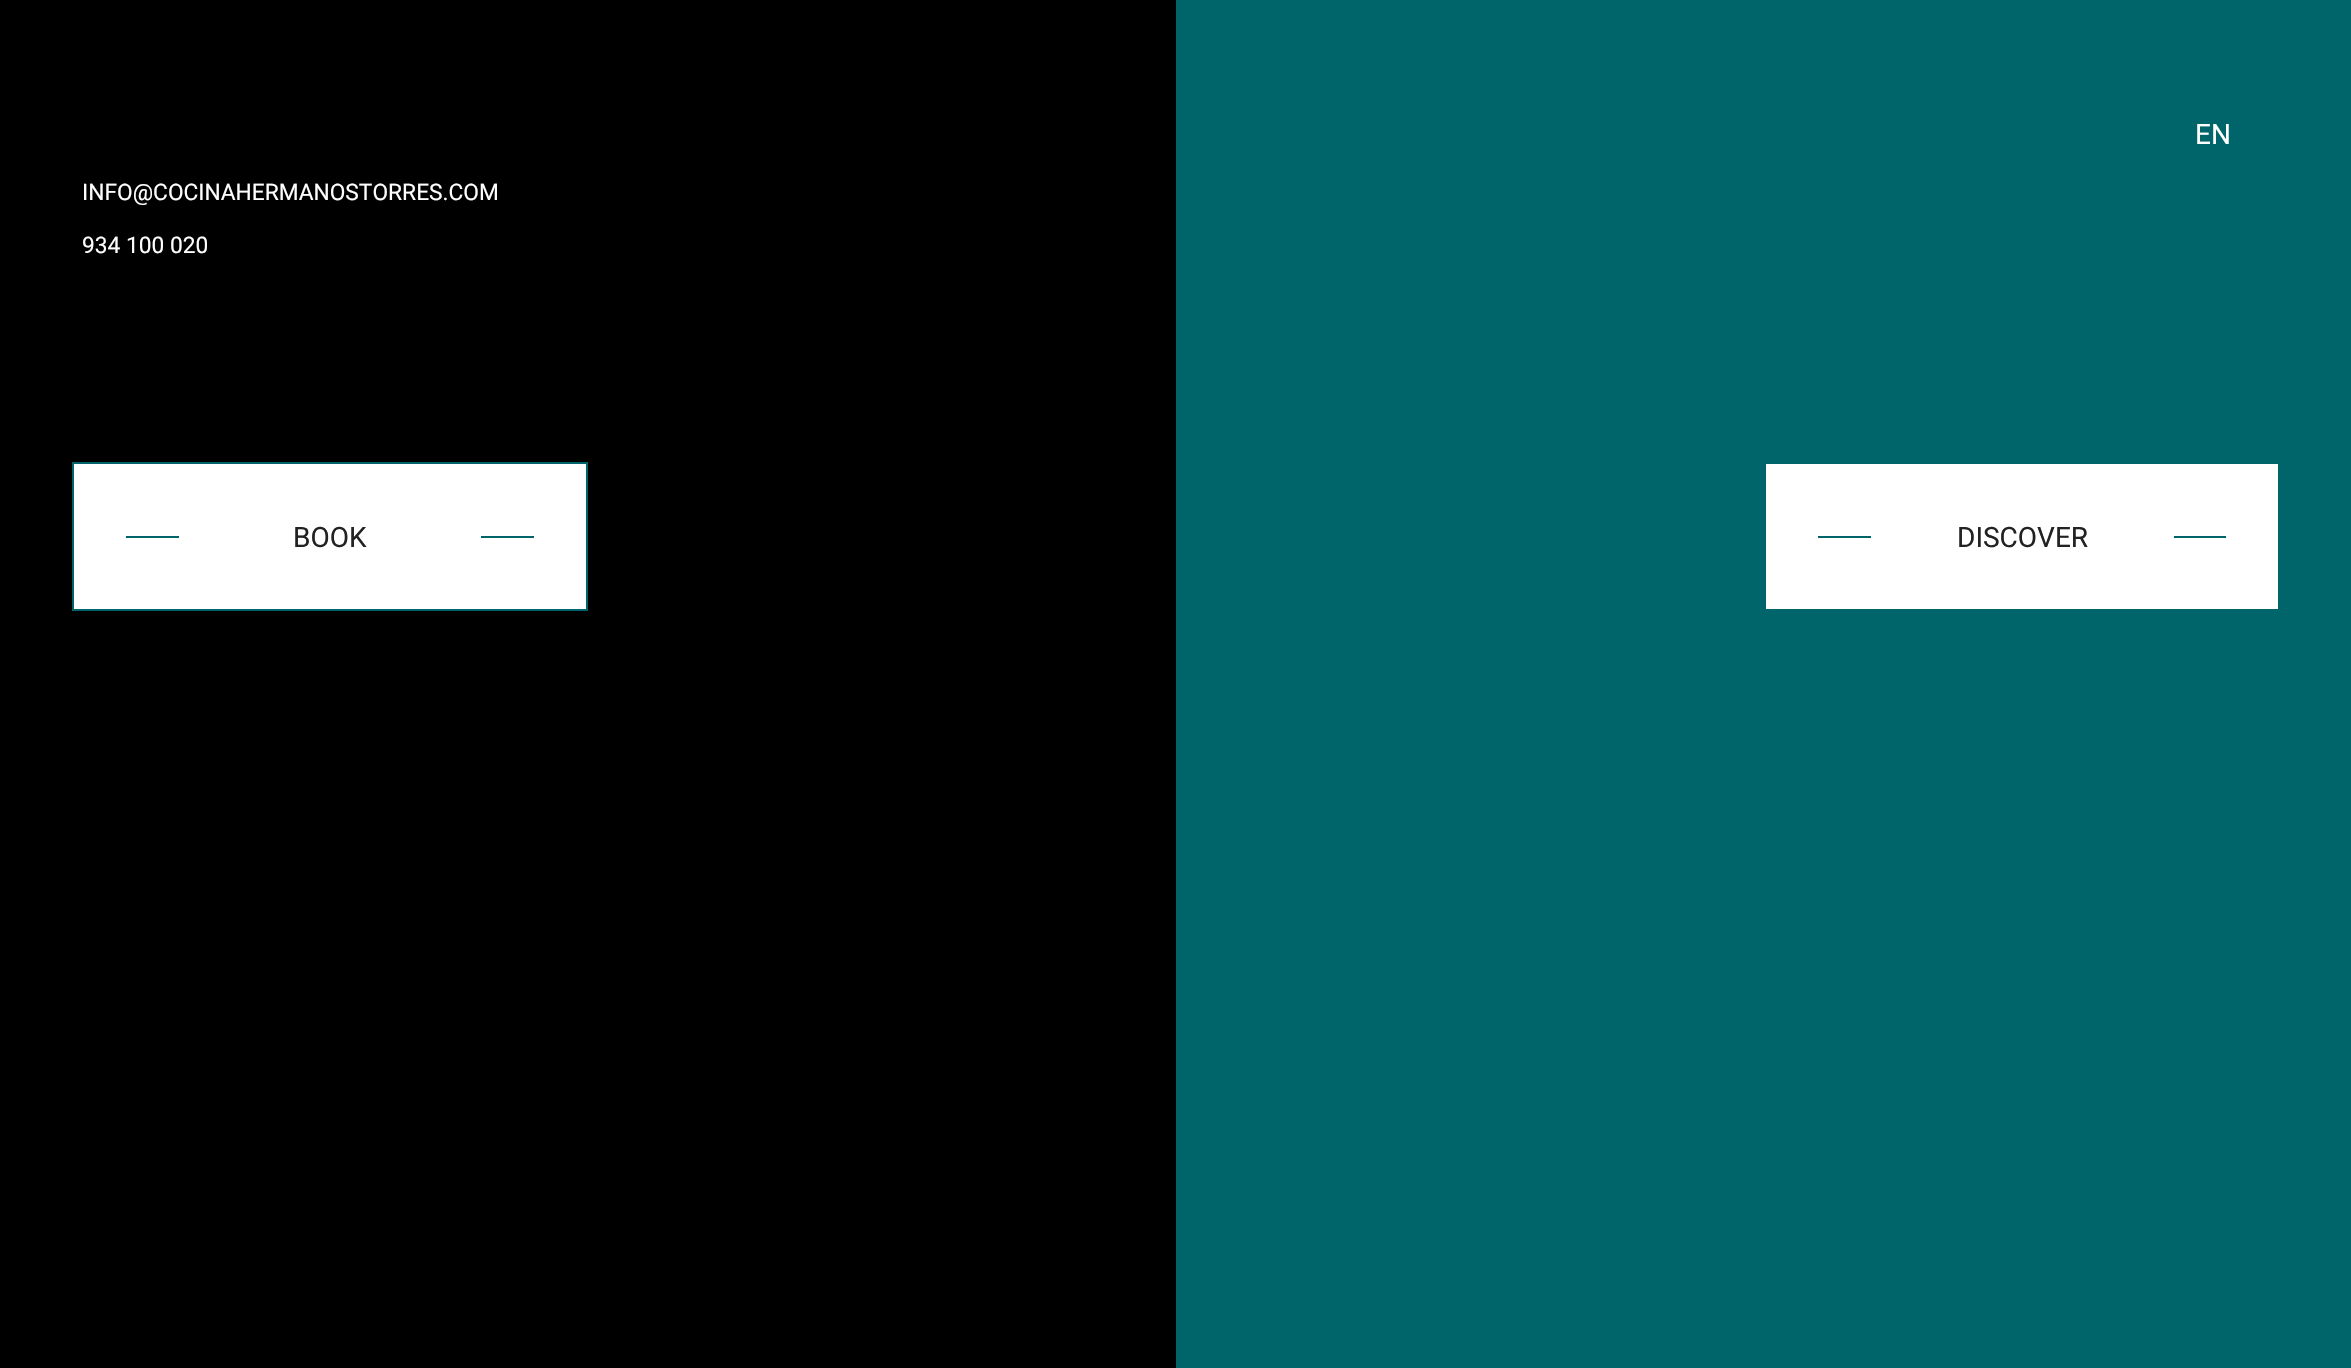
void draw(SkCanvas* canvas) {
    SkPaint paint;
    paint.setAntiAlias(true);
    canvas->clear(0xFF000000);
    paint.setColor(0xFF00656A);
    canvas->drawRect(SkRect::MakeXYWH(1176, 0, 1175, 1368), paint);
    SkFont font1(fontMgr->matchFamilyStyle("Roboto", SkFontStyle::Normal()), 28);
    font1.setSubpixel(true);
    paint.setColor(0xFFFFFFFF);
    canvas->drawString("EN", 2195, 144, font1, paint);
    SkFont font2(fontMgr->matchFamilyStyle("Roboto", SkFontStyle::Normal()), 22.75f);
    font2.setSubpixel(true);
    canvas->drawString("INFO@COCINAHERMANOSTORRES.COM", 82, 200, font2, paint);
    canvas->drawString("934 100 020", 82, 253, font2, paint);
    canvas->drawRect(SkRect::MakeXYWH(73, 463, 514, 147), paint);
    paint.setStyle(SkPaint::kStroke_Style);
    paint.setStrokeWidth(2);
    paint.setColor(0xFF00656A);
    canvas->drawRect(SkRect::MakeXYWH(73, 463, 514, 147), paint);
    paint.setStyle(SkPaint::kFill_Style);
    canvas->drawRect(SkRect::MakeXYWH(126, 536, 53, 2), paint);
    paint.setColor(0xFF222222);
    canvas->drawString("BOOK", 293, 547, font1, paint);
    paint.setColor(0xFF00656A);
    canvas->drawRect(SkRect::MakeXYWH(481, 536, 53, 2), paint);
    paint.setColor(0xFFFFFFFF);
    canvas->drawRect(SkRect::MakeXYWH(1766, 464, 512, 145), paint);
    paint.setColor(0xFF00656A);
    canvas->drawRect(SkRect::MakeXYWH(1818, 536, 53, 2), paint);
    paint.setColor(0xFF222222);
    canvas->drawString("DISCOVER", 1957, 547, font1, paint);
    paint.setColor(0xFF00656A);
    canvas->drawRect(SkRect::MakeXYWH(2174, 536, 52, 2), paint);
}
